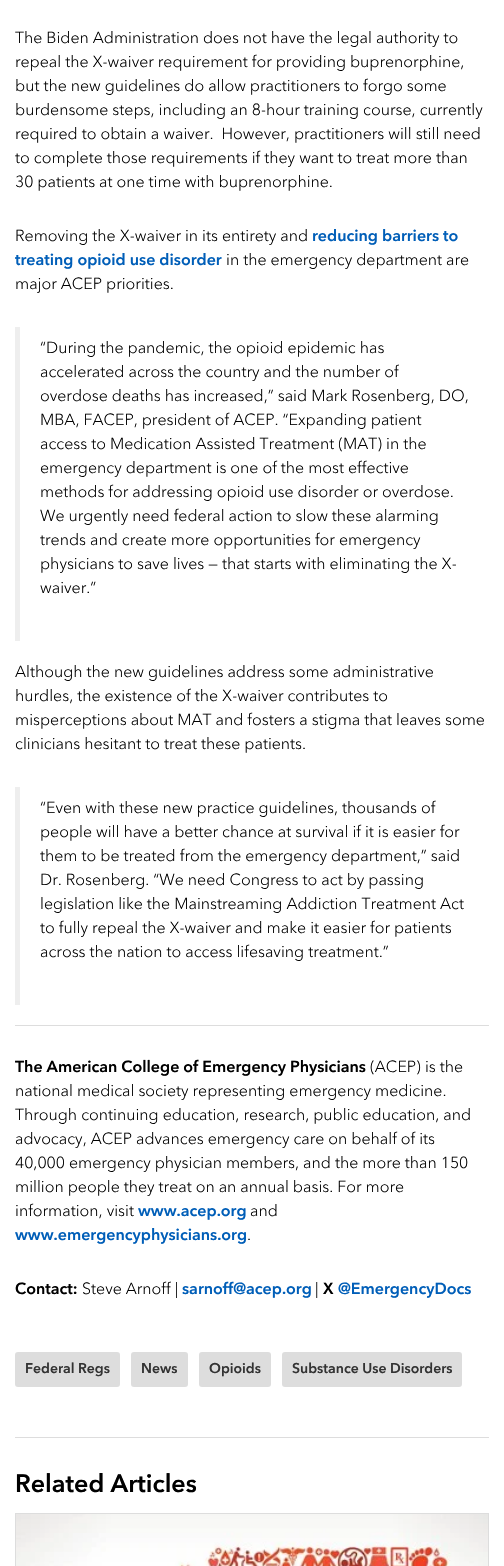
void draw(SkCanvas* canvas) {
    SkPaint paint;
    paint.setAntiAlias(true);
    canvas->clear(0xFFFFFFFF);
    SkFont font1(fontMgr->matchFamilyStyle("Avenir Next", SkFontStyle(300, SkFontStyle::kNormal_Width, SkFontStyle::kUpright_Slant)), 16);
    font1.setSubpixel(true);
    paint.setColor(0xFF000000);
    canvas->drawString("The Biden Administration does not have the legal authority to", 15, 43, font1, paint);
    canvas->drawString("repeal the X-waiver requirement for providing buprenorphine,", 15, 67, font1, paint);
    canvas->drawString("but the new guidelines do allow practitioners to forgo some", 15, 91, font1, paint);
    canvas->drawString("burdensome steps, including an 8-hour training course, currently", 15, 115, font1, paint);
    canvas->drawString("required to obtain a waiver.  However, practitioners will still need", 15, 139, font1, paint);
    canvas->drawString("to complete those requirements if they want to treat more than", 15, 163, font1, paint);
    canvas->drawString("30 patients at one time with buprenorphine.", 15, 187, font1, paint);
    canvas->drawString("Removing the X-waiver in its entirety and", 15, 241, font1, paint);
    SkFont font2(fontMgr->matchFamilyStyle("Avenir Next", SkFontStyle::Bold()), 16);
    font2.setSubpixel(true);
    paint.setColor(0xFF005EB8);
    canvas->drawString("reducing barriers to", 312, 241, font2, paint);
    canvas->drawString("treating opioid use disorder", 15, 265, font2, paint);
    paint.setColor(0xFF000000);
    canvas->drawString("in the emergency department are", 226, 265, font1, paint);
    canvas->drawString("major ACEP priorities.", 15, 289, font1, paint);
    paint.setColor(0xFFEEEEEE);
    canvas->drawRect(SkRect::MakeXYWH(15, 327, 5, 314), paint);
    paint.setColor(0xFF000000);
    canvas->drawString("“During the pandemic, the opioid epidemic has", 40, 353, font1, paint);
    canvas->drawString("accelerated across the country and the number of", 40, 377, font1, paint);
    canvas->drawString("overdose deaths has increased,” said Mark Rosenberg, DO,", 40, 401, font1, paint);
    canvas->drawString("MBA, FACEP, president of ACEP. “Expanding patient", 40, 425, font1, paint);
    canvas->drawString("access to Medication Assisted Treatment (MAT) in the", 40, 449, font1, paint);
    canvas->drawString("emergency department is one of the most effective", 40, 473, font1, paint);
    canvas->drawString("methods for addressing opioid use disorder or overdose.", 40, 497, font1, paint);
    canvas->drawString("We urgently need federal action to slow these alarming", 40, 521, font1, paint);
    canvas->drawString("trends and create more opportunities for emergency", 40, 545, font1, paint);
    canvas->drawString("physicians to save lives — that starts with eliminating the X-", 40, 569, font1, paint);
    canvas->drawString("waiver.”", 40, 593, font1, paint);
    canvas->drawString("Although the new guidelines address some administrative", 15, 677, font1, paint);
    canvas->drawString("hurdles, the existence of the X-waiver contributes to", 15, 701, font1, paint);
    canvas->drawString("misperceptions about MAT and fosters a stigma that leaves some", 15, 725, font1, paint);
    canvas->drawString("clinicians hesitant to treat these patients.", 15, 749, font1, paint);
    paint.setColor(0xFFEEEEEE);
    canvas->drawRect(SkRect::MakeXYWH(15, 787, 5, 218), paint);
    paint.setColor(0xFF000000);
    canvas->drawString("“Even with these new practice guidelines, thousands of", 40, 813, font1, paint);
    canvas->drawString("people will have a better chance at survival if it is easier for", 40, 837, font1, paint);
    canvas->drawString("them to be treated from the emergency department,” said", 40, 861, font1, paint);
    canvas->drawString("Dr. Rosenberg. “We need Congress to act by passing", 40, 885, font1, paint);
    canvas->drawString("legislation like the Mainstreaming Addiction Treatment Act", 40, 909, font1, paint);
    canvas->drawString("to fully repeal the X-waiver and make it easier for patients", 40, 933, font1, paint);
    canvas->drawString("across the nation to access lifesaving treatment.”", 40, 957, font1, paint);
    paint.setColor(0xFFDDDDDD);
    canvas->drawRect(SkRect::MakeXYWH(15, 1025, 474, 1), paint);
    paint.setColor(0xFF000000);
    canvas->drawString("The American College of Emergency Physicians", 15, 1072, font2, paint);
    canvas->drawString("(ACEP) is the", 370, 1072, font1, paint);
    canvas->drawString("national medical society representing emergency medicine.", 15, 1096, font1, paint);
    canvas->drawString("Through continuing education, research, public education, and", 15, 1120, font1, paint);
    canvas->drawString("advocacy, ACEP advances emergency care on behalf of its", 15, 1144, font1, paint);
    canvas->drawString("40,000 emergency physician members, and the more than 150", 15, 1168, font1, paint);
    canvas->drawString("million people they treat on an annual basis. For more", 15, 1192, font1, paint);
    canvas->drawString("information, visit", 15, 1216, font1, paint);
    paint.setColor(0xFF005EB8);
    canvas->drawString("www.acep.org", 138, 1216, font2, paint);
    paint.setColor(0xFF000000);
    canvas->drawString("and", 250, 1216, font1, paint);
    paint.setColor(0xFF005EB8);
    canvas->drawString("www.emergencyphysicians.org", 15, 1240, font2, paint);
    paint.setColor(0xFF000000);
    canvas->drawString(".", 247, 1240, font1, paint);
    canvas->drawString("Contact:", 15, 1294, font2, paint);
    canvas->drawString("Steve Arnoff |", 82, 1294, font1, paint);
    paint.setColor(0xFF005EB8);
    canvas->drawString("sarnoff@acep.org", 182, 1294, font2, paint);
    paint.setColor(0xFF000000);
    canvas->drawString("|", 315, 1294, font1, paint);
    canvas->drawString("X", 323, 1294, font2, paint);
    paint.setColor(0xFF005EB8);
    canvas->drawString("@EmergencyDocs", 338, 1294, font2, paint);
    paint.setColor(0xFFDDDDDD);
    canvas->drawRoundRect(SkRect::MakeXYWH(15, 1352, 105, 35), 3, 3, paint);
    SkFont font3(fontMgr->matchFamilyStyle("Avenir Next", SkFontStyle::Bold()), 14);
    font3.setSubpixel(true);
    paint.setColor(0xFF333333);
    canvas->drawString("Federal Regs", 25, 1373, font3, paint);
    paint.setColor(0xFFDDDDDD);
    canvas->drawRoundRect(SkRect::MakeXYWH(131, 1352, 57, 35), 3, 3, paint);
    paint.setColor(0xFF333333);
    canvas->drawString("News", 141, 1373, font3, paint);
    paint.setColor(0xFFDDDDDD);
    canvas->drawRoundRect(SkRect::MakeXYWH(199, 1352, 72, 35), 3, 3, paint);
    paint.setColor(0xFF333333);
    canvas->drawString("Opioids", 209, 1373, font3, paint);
    paint.setColor(0xFFDDDDDD);
    canvas->drawRoundRect(SkRect::MakeXYWH(282, 1352, 180, 35), 3, 3, paint);
    paint.setColor(0xFF333333);
    canvas->drawString("Substance Use Disorders", 292, 1373, font3, paint);
    paint.setColor(0xFFDDDDDD);
    canvas->drawRect(SkRect::MakeXYWH(15, 1437, 474, 1), paint);
    SkFont font4(fontMgr->matchFamilyStyle("Avenir Next", SkFontStyle::Bold()), 25);
    font4.setSubpixel(true);
    paint.setColor(0xFF000000);
    canvas->drawString("Related Articles", 15, 1492, font4, paint);
    paint.setStyle(SkPaint::kStroke_Style);
    paint.setStrokeWidth(1);
    paint.setColor(0xFFDDDDDD);
    canvas->drawRect(SkRect::MakeXYWH(15.5f, 1513.5f, 473, 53), paint);
    canvas->drawImageRect(SkImages::DeferredFromEncodedData(SkData::MakeFromFileName("img1.png")), SkRect::MakeXYWH(16, 1514, 472, 52), SkSamplingOptions());
}
